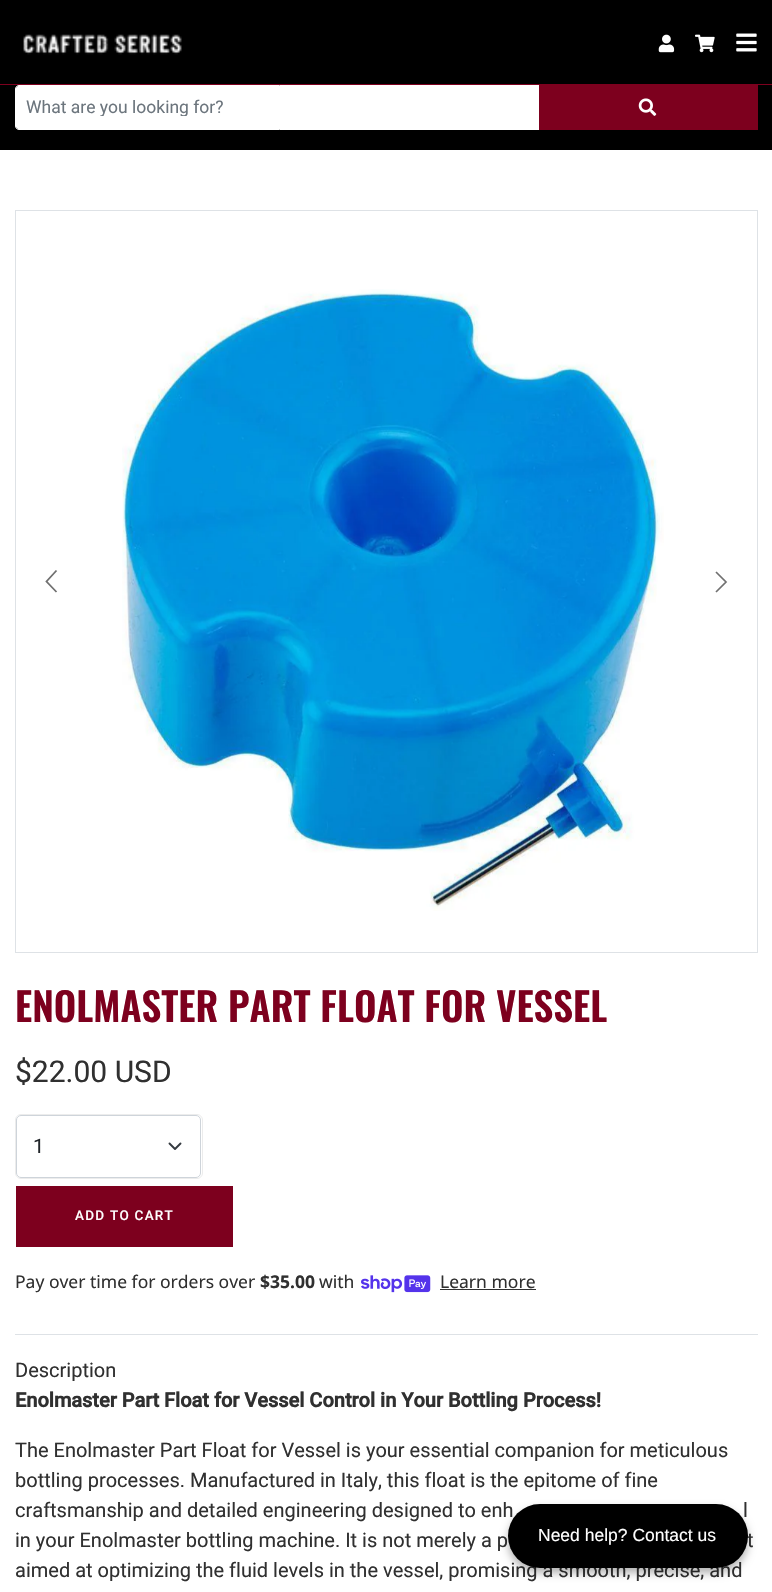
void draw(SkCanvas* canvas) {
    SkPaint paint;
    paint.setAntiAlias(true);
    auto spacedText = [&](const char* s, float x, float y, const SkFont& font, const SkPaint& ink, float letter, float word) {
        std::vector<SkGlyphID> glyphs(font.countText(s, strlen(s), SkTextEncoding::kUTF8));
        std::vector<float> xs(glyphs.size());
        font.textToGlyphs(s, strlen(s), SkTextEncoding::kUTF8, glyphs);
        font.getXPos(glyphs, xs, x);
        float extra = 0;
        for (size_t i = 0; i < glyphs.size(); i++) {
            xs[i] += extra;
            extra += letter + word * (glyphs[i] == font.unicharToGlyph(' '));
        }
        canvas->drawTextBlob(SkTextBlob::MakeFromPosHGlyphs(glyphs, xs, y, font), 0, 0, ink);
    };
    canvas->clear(0xFFFFFFFF);
    paint.setColor(0xFF000000);
    canvas->drawRect(SkRect::MakeXYWH(0, 0, 772, 84), paint);
    canvas->drawImageRect(SkImages::DeferredFromEncodedData(SkData::MakeFromFileName("img1.png")), SkRect::MakeXYWH(23, 34, 159, 21), SkSamplingOptions());
    canvas->drawImageRect(SkImages::DeferredFromEncodedData(SkData::MakeFromFileName("img2.png")), SkRect::MakeXYWH(658, 34, 17, 19), SkSamplingOptions());
    canvas->drawImageRect(SkImages::DeferredFromEncodedData(SkData::MakeFromFileName("img3.png")), SkRect::MakeXYWH(695, 34, 20, 19), SkSamplingOptions());
    canvas->drawImageRect(SkImages::DeferredFromEncodedData(SkData::MakeFromFileName("img4.png")), SkRect::MakeXYWH(736, 33, 21, 19), SkSamplingOptions());
    paint.setColor(0xFF7D001E);
    canvas->drawRect(SkRect::MakeXYWH(0, 84, 772, 1), paint);
    paint.setColor(0xFF000000);
    canvas->drawRect(SkRect::MakeXYWH(0, 85, 772, 65), paint);
    paint.setColor(0xFFFFFFFF);
    canvas->drawPath(SkPathBuilder().moveTo(18.5f, 86).lineTo(539, 86).lineTo(539, 129).lineTo(18.5f, 129).cubicTo(17, 129, 16, 128, 16, 126.5f).lineTo(16, 88.5f).cubicTo(16, 87, 17, 86, 18.5f, 86).close().detach(), paint);
    paint.setStyle(SkPaint::kStroke_Style);
    paint.setStrokeWidth(1);
    canvas->drawPath(SkPathBuilder().moveTo(19, 85.5f).lineTo(539.5f, 85.5f).lineTo(539.5f, 129.5f).lineTo(19, 129.5f).cubicTo(17, 129.5f, 15.5f, 128, 15.5f, 126).lineTo(15.5f, 89).cubicTo(15.5f, 87, 17, 85.5f, 19, 85.5f).close().detach(), paint);
    canvas->save();
    canvas->clipRect(SkRect::MakeXYWH(26, 96, 503, 20));
    SkFont font1(fontMgr->matchFamilyStyle("Roboto", SkFontStyle::Normal()), 17.5f);
    font1.setSubpixel(true);
    paint.setStyle(SkPaint::kFill_Style);
    paint.setColor(0xFF6C757D);
    canvas->drawString("What are you looking for?", 26, 113, font1, paint);
    canvas->restore();
    paint.setColor(0xFF7D001E);
    canvas->drawRect(SkRect::MakeXYWH(539, 85, 219, 45), paint);
    canvas->drawImageRect(SkImages::DeferredFromEncodedData(SkData::MakeFromFileName("img5.png")), SkRect::MakeXYWH(638, 98, 19, 18), SkSamplingOptions());
    paint.setStyle(SkPaint::kStroke_Style);
    paint.setColor(0xFFDEE2E6);
    canvas->drawRect(SkRect::MakeXYWH(15.5f, 210.5f, 742, 742), paint);
    paint.setStrokeWidth(1.8f);
    paint.setColor(0xFF707070);
    canvas->drawPath(SkPathBuilder().moveTo(56.5f, 570.5f).lineTo(46.5f, 581.5f).lineTo(56.5f, 592).detach(), paint);
    canvas->drawImageRect(SkImages::DeferredFromEncodedData(SkData::MakeFromFileName("img6.png")), SkRect::MakeXYWH(122, 289, 542, 622), SkSamplingOptions());
    paint.setStrokeWidth(1.7f);
    canvas->drawPath(SkPathBuilder().moveTo(716, 572).lineTo(726, 582).lineTo(716, 592).detach(), paint);
    SkFont font2(fontMgr->matchFamilyStyle("Oswald", SkFontStyle(600, SkFontStyle::kNormal_Width, SkFontStyle::kUpright_Slant)), 39.1f);
    font2.setSubpixel(true);
    paint.setStyle(SkPaint::kFill_Style);
    paint.setColor(0xFF7D001E);
    canvas->drawString("ENOLMASTER PART FLOAT FOR VESSEL", 15, 1022, font2, paint);
    SkFont font3(fontMgr->matchFamilyStyle("Roboto", SkFontStyle::Normal()), 30);
    font3.setSubpixel(true);
    paint.setColor(0xFF303030);
    canvas->drawString("$22.00 USD", 15, 1082, font3, paint);
    paint.setStyle(SkPaint::kStroke_Style);
    paint.setStrokeWidth(1);
    paint.setColor(0xFFECECEC);
    canvas->drawRoundRect(SkRect::MakeXYWH(15.5f, 1114.5f, 187, 64), 5.5f, 5.5f, paint);
    paint.setStyle(SkPaint::kFill_Style);
    paint.setColor(0xFFFFFFFF);
    canvas->drawRoundRect(SkRect::MakeXYWH(16, 1115, 185, 63), 5, 5, paint);
    paint.setStyle(SkPaint::kStroke_Style);
    paint.setStrokeWidth(1.9f);
    paint.setStrokeCap(SkPaint::kRound_Cap);
    paint.setStrokeJoin(SkPaint::kRound_Join);
    paint.setColor(0xFF343A40);
    canvas->drawPath(SkPathBuilder().moveTo(169.5f, 1143.5f).lineTo(175, 1149).lineTo(180.5f, 1143.5f).detach(), paint);
    paint.setStrokeWidth(1);
    paint.setStrokeCap(SkPaint::kButt_Cap);
    paint.setStrokeJoin(SkPaint::kMiter_Join);
    paint.setColor(0xFFCED4DA);
    canvas->drawRoundRect(SkRect::MakeXYWH(16.5f, 1115.5f, 184, 62), 4.5f, 4.5f, paint);
    SkFont font4(fontMgr->matchFamilyStyle("Roboto", SkFontStyle::Normal()), 20);
    font4.setSubpixel(true);
    paint.setStyle(SkPaint::kFill_Style);
    paint.setColor(0xFF212529);
    canvas->drawString("1", 33, 1153, font4, paint);
    paint.setColor(0xFF7D001E);
    canvas->drawRect(SkRect::MakeXYWH(16, 1186, 217, 61), paint);
    SkFont font5(fontMgr->matchFamilyStyle("Roboto", SkFontStyle(500, SkFontStyle::kNormal_Width, SkFontStyle::kUpright_Slant)), 13.5f);
    font5.setSubpixel(true);
    paint.setColor(0xFFFFFFFF);
    spacedText("ADD TO CART", 75, 1220, font5, paint, 1.25f, 0);
    SkFont font6(fontMgr->matchFamilyStyle("Noto Sans", SkFontStyle::Normal()), 17.5f);
    font6.setSubpixel(true);
    paint.setColor(0xFF303030);
    canvas->drawString("Pay over time for orders over", 15, 1288, font6, paint);
    SkFont font7(fontMgr->matchFamilyStyle("Noto Sans", SkFontStyle::Bold()), 17.5f);
    font7.setSubpixel(true);
    canvas->drawString("$35.00", 260, 1288, font7, paint);
    canvas->drawString("with", 319, 1288, font6, paint);
    canvas->drawImageRect(SkImages::DeferredFromEncodedData(SkData::MakeFromFileName("img7.png")), SkRect::MakeXYWH(361, 1275, 70, 18), SkSamplingOptions());
    canvas->drawString("Learn more", 440, 1288, font6, paint);
    canvas->drawRect(SkRect::MakeXYWH(440, 1289, 96, 1), paint);
    paint.setColor(0xFFDEE2E6);
    canvas->drawRect(SkRect::MakeXYWH(15, 1334, 743, 1), paint);
    paint.setColor(0xFF303030);
    canvas->drawString("Description", 15, 1377, font4, paint);
    SkFont font8(fontMgr->matchFamilyStyle("Roboto", SkFontStyle::Bold()), 20);
    font8.setSubpixel(true);
    canvas->drawString("Enolmaster Part Float for Vessel Control in Your Bottling Process!", 15, 1407, font8, paint);
    canvas->drawString("The Enolmaster Part Float for Vessel is your essential companion for meticulous", 15, 1457, font4, paint);
    canvas->drawString("bottling processes. Manufactured in Italy, this float is the epitome of fine", 15, 1487, font4, paint);
    canvas->drawString("craftsmanship and detailed engineering designed to enh", 15, 1517, font4, paint);
    canvas->drawString("l", 743, 1517, font4, paint);
    canvas->drawString("in your Enolmaster bottling machine. It is not merely a p", 15, 1547, font4, paint);
    canvas->drawString("t", 747, 1547, font4, paint);
    canvas->drawString("aimed at optimizing the fluid levels in the vessel, promising a smooth, precise, and", 15, 1577, font4, paint);
    paint.setColor(0x4D000000);
    paint.setMaskFilter(SkMaskFilter::MakeBlur(kNormal_SkBlurStyle, 4));
    canvas->drawRoundRect(SkRect::MakeXYWH(508, 1509, 240, 64), 32, 32, paint);
    paint.setMaskFilter(nullptr);
    paint.setColor(0xFF000000);
    canvas->drawRoundRect(SkRect::MakeXYWH(508, 1504, 240, 64), 32, 32, paint);
    SkFont font9(fontMgr->matchFamilyStyle("Liberation Sans", SkFontStyle::Normal()), 17.5f);
    font9.setSubpixel(true);
    paint.setColor(0xFFFFFFFF);
    canvas->drawString("Need help? Contact us", 538, 1541, font9, paint);
}
